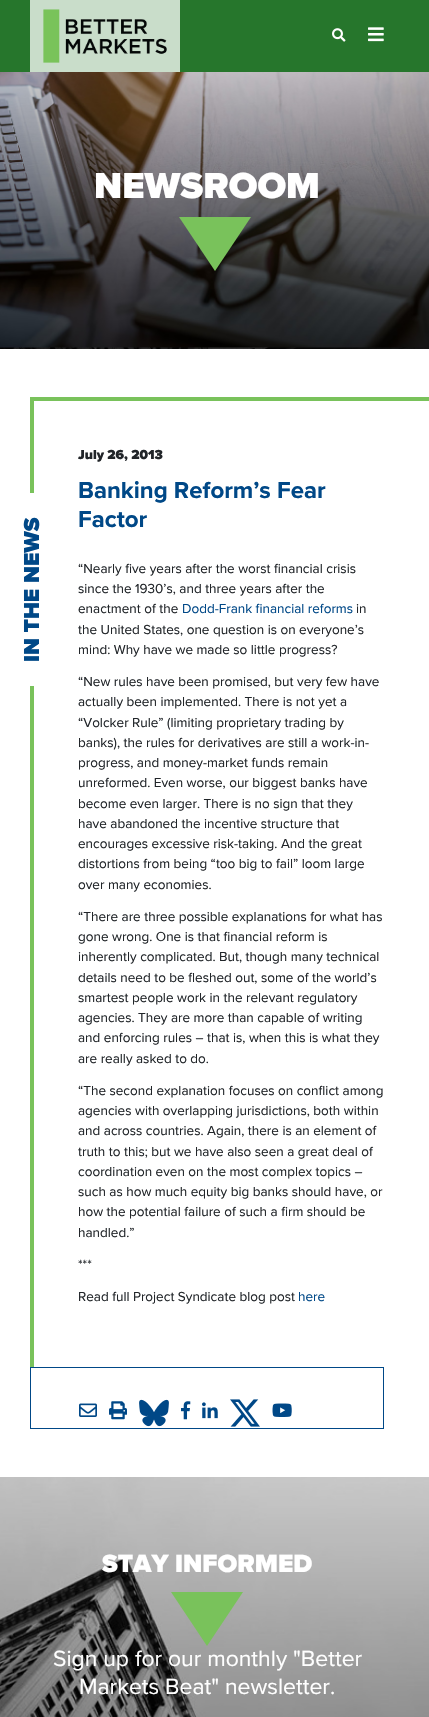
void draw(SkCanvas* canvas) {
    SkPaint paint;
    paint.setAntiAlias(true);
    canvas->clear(0xFFFFFFFF);
    paint.setColor(0xFF26762C);
    canvas->drawRect(SkRect::MakeXYWH(0, 0, 429, 72), paint);
    canvas->drawImageRect(SkImages::DeferredFromEncodedData(SkData::MakeFromFileName("img1.png")), SkRect::MakeXYWH(30, 0, 150, 72), SkSamplingOptions());
    canvas->drawImageRect(SkImages::DeferredFromEncodedData(SkData::MakeFromFileName("img2.png")), SkRect::MakeXYWH(332, 28, 14, 14), SkSamplingOptions());
    canvas->drawImageRect(SkImages::DeferredFromEncodedData(SkData::MakeFromFileName("img3.png")), SkRect::MakeXYWH(368, 27, 16, 15), SkSamplingOptions());
    canvas->drawImageRect(SkImages::DeferredFromEncodedData(SkData::MakeFromFileName("img4.png")), SkRect::MakeXYWH(0, 72, 429, 277), SkSamplingOptions());
    SkFont font1(fontMgr->matchFamilyStyle("Proxima Nova", SkFontStyle(900, SkFontStyle::kNormal_Width, SkFontStyle::kUpright_Slant)), 37.5f);
    font1.setSubpixel(true);
    paint.setColor(0xFFFFFFFF);
    canvas->drawString("NEWSROOM", 94, 198, font1, paint);
    paint.setColor(0xFF79C25B);
    canvas->drawPath(SkPathBuilder().moveTo(179, 217).lineTo(251, 217).lineTo(215, 271).close().detach(), paint);
    canvas->drawRect(SkRect::MakeXYWH(30, 397, 399, 4), paint);
    canvas->drawRect(SkRect::MakeXYWH(30, 397, 4, 970), paint);
    SkFont font2(fontMgr->matchFamilyStyle("Proxima Nova", SkFontStyle(900, SkFontStyle::kNormal_Width, SkFontStyle::kUpright_Slant)), 13.5f);
    font2.setSubpixel(true);
    paint.setColor(0xFF212529);
    canvas->drawString("July 26, 2013", 78, 459, font2, paint);
    SkFont font3(fontMgr->matchFamilyStyle("Proxima Nova", SkFontStyle::Bold()), 24);
    font3.setSubpixel(true);
    paint.setColor(0xFF004887);
    canvas->drawString("Banking Reform’s Fear", 78, 498, font3, paint);
    canvas->drawString("Factor", 78, 527, font3, paint);
    paint.setColor(0xFFFFFFFF);
    canvas->drawRect(SkRect::MakeXYWH(30, 493, 4, 193), paint);
    SkFont font4(fontMgr->matchFamilyStyle("Proxima Nova", SkFontStyle(900, SkFontStyle::kNormal_Width, SkFontStyle::kUpright_Slant)), 22.5f);
    font4.setSubpixel(true);
    paint.setColor(0xFF004887);
    canvas->save();
    canvas->rotate(-90, 39, 662);
    canvas->drawString("IN THE NEWS", 39, 662, font4, paint);
    canvas->restore();
    SkFont font5(fontMgr->matchFamilyStyle("Proxima Nova", SkFontStyle::Normal()), 13.5f);
    font5.setSubpixel(true);
    paint.setColor(0xFF212529);
    canvas->drawString("“Nearly five years after the worst financial crisis", 78, 573, font5, paint);
    canvas->drawString("since the 1930’s, and three years after the", 78, 593, font5, paint);
    canvas->drawString("enactment of the", 78, 613, font5, paint);
    paint.setColor(0xFF004887);
    canvas->drawString("Dodd-Frank financial reforms", 182, 613, font5, paint);
    paint.setColor(0xFF212529);
    canvas->drawString("in", 356, 613, font5, paint);
    canvas->drawString("the United States, one question is on everyone’s", 78, 634, font5, paint);
    canvas->drawString("mind: Why have we made so little progress?", 78, 654, font5, paint);
    canvas->drawString("“New rules have been promised, but very few have", 78, 686, font5, paint);
    canvas->drawString("actually been implemented. There is not yet a", 78, 706, font5, paint);
    canvas->drawString("“Volcker Rule” (limiting proprietary trading by", 78, 727, font5, paint);
    canvas->drawString("banks), the rules for derivatives are still a work-in-", 78, 747, font5, paint);
    canvas->drawString("progress, and money-market funds remain", 78, 767, font5, paint);
    canvas->drawString("unreformed. Even worse, our biggest banks have", 78, 787, font5, paint);
    canvas->drawString("become even larger. There is no sign that they", 78, 808, font5, paint);
    canvas->drawString("have abandoned the incentive structure that", 78, 828, font5, paint);
    canvas->drawString("encourages excessive risk-taking. And the great", 78, 848, font5, paint);
    canvas->drawString("distortions from being “too big to fail” loom large", 78, 868, font5, paint);
    canvas->drawString("over many economies.", 78, 889, font5, paint);
    canvas->drawString("“There are three possible explanations for what has", 78, 921, font5, paint);
    canvas->drawString("gone wrong. One is that financial reform is", 78, 941, font5, paint);
    canvas->drawString("inherently complicated. But, though many technical", 78, 961, font5, paint);
    canvas->drawString("details need to be fleshed out, some of the world’s", 78, 982, font5, paint);
    canvas->drawString("smartest people work in the relevant regulatory", 78, 1002, font5, paint);
    canvas->drawString("agencies. They are more than capable of writing", 78, 1022, font5, paint);
    canvas->drawString("and enforcing rules – that is, when this is what they", 78, 1042, font5, paint);
    canvas->drawString("are really asked to do.", 78, 1063, font5, paint);
    canvas->drawString("“The second explanation focuses on conflict among", 78, 1095, font5, paint);
    canvas->drawString("agencies with overlapping jurisdictions, both within", 78, 1115, font5, paint);
    canvas->drawString("and across countries. Again, there is an element of", 78, 1135, font5, paint);
    canvas->drawString("truth to this; but we have also seen a great deal of", 78, 1156, font5, paint);
    canvas->drawString("coordination even on the most complex topics –", 78, 1176, font5, paint);
    canvas->drawString("such as how much equity big banks should have, or", 78, 1196, font5, paint);
    canvas->drawString("how the potential failure of such a firm should be", 78, 1216, font5, paint);
    canvas->drawString("handled.”", 78, 1237, font5, paint);
    canvas->drawString("***", 78, 1269, font5, paint);
    canvas->drawString("Read full Project Syndicate blog post", 78, 1301, font5, paint);
    paint.setColor(0xFF004887);
    canvas->drawString("here", 298, 1301, font5, paint);
    paint.setStyle(SkPaint::kStroke_Style);
    paint.setStrokeWidth(1);
    canvas->drawRect(SkRect::MakeXYWH(30.5f, 1367.5f, 353, 61), paint);
    canvas->drawImageRect(SkImages::DeferredFromEncodedData(SkData::MakeFromFileName("img5.png")), SkRect::MakeXYWH(79, 1403, 18, 14), SkSamplingOptions());
    canvas->drawImageRect(SkImages::DeferredFromEncodedData(SkData::MakeFromFileName("img6.png")), SkRect::MakeXYWH(109, 1401, 18, 19), SkSamplingOptions());
    canvas->drawImageRect(SkImages::DeferredFromEncodedData(SkData::MakeFromFileName("img7.png")), SkRect::MakeXYWH(139, 1399, 30, 28), SkSamplingOptions());
    canvas->drawImageRect(SkImages::DeferredFromEncodedData(SkData::MakeFromFileName("img8.png")), SkRect::MakeXYWH(181, 1401, 10, 19), SkSamplingOptions());
    canvas->drawImageRect(SkImages::DeferredFromEncodedData(SkData::MakeFromFileName("img9.png")), SkRect::MakeXYWH(202, 1402, 16, 17), SkSamplingOptions());
    canvas->drawImageRect(SkImages::DeferredFromEncodedData(SkData::MakeFromFileName("img10.png")), SkRect::MakeXYWH(230, 1399, 30, 28), SkSamplingOptions());
    canvas->drawImageRect(SkImages::DeferredFromEncodedData(SkData::MakeFromFileName("img11.png")), SkRect::MakeXYWH(272, 1403, 20, 14), SkSamplingOptions());
    canvas->drawImageRect(SkImages::DeferredFromEncodedData(SkData::MakeFromFileName("img12.png")), SkRect::MakeXYWH(0, 1477, 429, 240), SkSamplingOptions());
    SkFont font6(fontMgr->matchFamilyStyle("Proxima Nova", SkFontStyle(900, SkFontStyle::kNormal_Width, SkFontStyle::kUpright_Slant)), 25.75f);
    font6.setSubpixel(true);
    paint.setStyle(SkPaint::kFill_Style);
    paint.setColor(0xFFFFFFFF);
    canvas->drawString("STAY INFORMED", 102, 1572, font6, paint);
    paint.setColor(0xFF79C25B);
    canvas->drawPath(SkPathBuilder().moveTo(171, 1592).lineTo(243, 1592).lineTo(207, 1646).close().detach(), paint);
    SkFont font7(fontMgr->matchFamilyStyle("Proxima Nova", SkFontStyle::Normal()), 22.9f);
    font7.setSubpixel(true);
    paint.setColor(0xFFFFFFFF);
    canvas->drawString("Sign up for our monthly \"Better", 53, 1666, font7, paint);
    canvas->drawString("Markets Beat\" newsletter.", 79, 1694, font7, paint);
}
